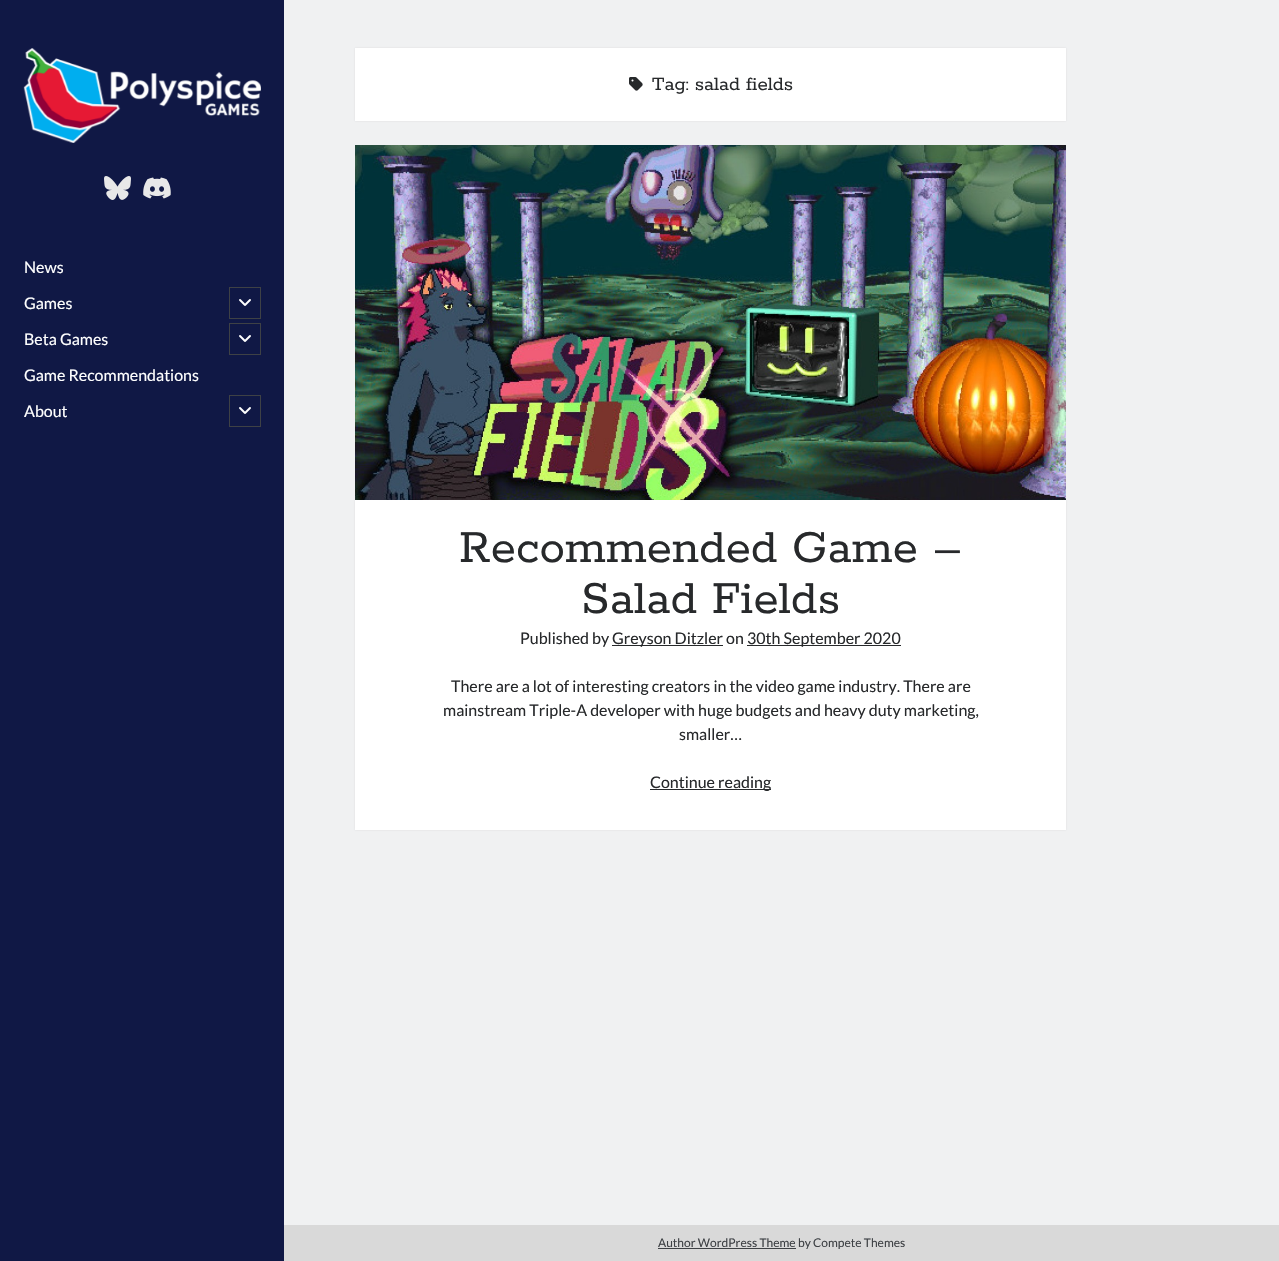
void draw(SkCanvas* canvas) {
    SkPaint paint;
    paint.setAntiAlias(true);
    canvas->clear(0xFF101845);
    canvas->drawImageRect(SkImages::DeferredFromEncodedData(SkData::MakeFromFileName("img1.png")), SkRect::MakeXYWH(23, 48, 238, 95), SkSamplingOptions());
    canvas->drawImageRect(SkImages::DeferredFromEncodedData(SkData::MakeFromFileName("img2.png")), SkRect::MakeXYWH(104, 176, 27, 24), SkSamplingOptions());
    canvas->drawImageRect(SkImages::DeferredFromEncodedData(SkData::MakeFromFileName("img3.png")), SkRect::MakeXYWH(143, 177, 28, 22), SkSamplingOptions());
    SkFont font1(fontMgr->matchFamilyStyle("Lato", SkFontStyle::Normal()), 16);
    font1.setSubpixel(true);
    paint.setColor(0xFFFFFFFF);
    canvas->drawString("News", 24, 273, font1, paint);
    canvas->drawString("Games", 24, 309, font1, paint);
    paint.setStyle(SkPaint::kStroke_Style);
    paint.setStrokeWidth(1);
    paint.setColor(0xFF3E4145);
    canvas->drawRect(SkRect::MakeXYWH(229.5f, 287.5f, 31, 31), paint);
    canvas->drawImageRect(SkImages::DeferredFromEncodedData(SkData::MakeFromFileName("img4.png")), SkRect::MakeXYWH(239, 299, 12, 7), SkSamplingOptions());
    paint.setStyle(SkPaint::kFill_Style);
    paint.setColor(0xFFFFFFFF);
    canvas->drawString("Beta Games", 24, 345, font1, paint);
    paint.setStyle(SkPaint::kStroke_Style);
    paint.setColor(0xFF3E4145);
    canvas->drawRect(SkRect::MakeXYWH(229.5f, 323.5f, 31, 31), paint);
    canvas->drawImageRect(SkImages::DeferredFromEncodedData(SkData::MakeFromFileName("img4.png")), SkRect::MakeXYWH(239, 335, 12, 7), SkSamplingOptions());
    paint.setStyle(SkPaint::kFill_Style);
    paint.setColor(0xFFFFFFFF);
    canvas->drawString("Game Recommendations", 24, 381, font1, paint);
    canvas->drawString("About", 24, 417, font1, paint);
    paint.setStyle(SkPaint::kStroke_Style);
    paint.setColor(0xFF3E4145);
    canvas->drawRect(SkRect::MakeXYWH(229.5f, 395.5f, 31, 31), paint);
    canvas->drawImageRect(SkImages::DeferredFromEncodedData(SkData::MakeFromFileName("img4.png")), SkRect::MakeXYWH(239, 407, 12, 7), SkSamplingOptions());
    paint.setStyle(SkPaint::kFill_Style);
    paint.setColor(0xFFF0F1F2);
    canvas->drawRect(SkRect::MakeXYWH(284, 0, 995, 1225), paint);
    paint.setColor(0x1A272B2F);
    paint.setMaskFilter(SkMaskFilter::MakeBlur(kNormal_SkBlurStyle, 1));
    canvas->drawRect(SkRect::MakeXYWH(355, 48, 711, 73), paint);
    paint.setMaskFilter(nullptr);
    paint.setColor(0xFFFFFFFF);
    canvas->drawRect(SkRect::MakeXYWH(355, 48, 711, 73), paint);
    canvas->drawImageRect(SkImages::DeferredFromEncodedData(SkData::MakeFromFileName("img5.png")), SkRect::MakeXYWH(629, 77, 14, 14), SkSamplingOptions());
    SkFont font2(fontMgr->matchFamilyStyle("Rokkitt", SkFontStyle::Normal()), 21);
    font2.setSubpixel(true);
    paint.setColor(0xFF27292B);
    canvas->drawString("Tag: salad fields", 652, 90, font2, paint);
    paint.setColor(0x1A272B2F);
    paint.setMaskFilter(SkMaskFilter::MakeBlur(kNormal_SkBlurStyle, 1));
    canvas->drawRect(SkRect::MakeXYWH(355, 500, 711, 330), paint);
    paint.setMaskFilter(nullptr);
    canvas->drawImageRect(SkImages::DeferredFromEncodedData(SkData::MakeFromFileName("img6.png")), SkRect::MakeXYWH(355, 145, 711, 355), SkSamplingOptions());
    paint.setColor(0xFFFFFFFF);
    canvas->drawRect(SkRect::MakeXYWH(355, 500, 711, 330), paint);
    SkFont font3(fontMgr->matchFamilyStyle("Rokkitt", SkFontStyle::Normal()), 51);
    font3.setSubpixel(true);
    paint.setColor(0xFF27292B);
    canvas->drawString("Recommended Game –", 459, 562, font3, paint);
    canvas->drawString("Salad Fields", 581, 613, font3, paint);
    canvas->drawString("Published by", 520, 644, font1, paint);
    canvas->drawRect(SkRect::MakeXYWH(612, 645, 111, 1), paint);
    canvas->drawString("Greyson Ditzler on", 612, 644, font1, paint);
    canvas->drawRect(SkRect::MakeXYWH(747, 645, 154, 1), paint);
    canvas->drawString("30th September 2020", 747, 644, font1, paint);
    canvas->drawString("There are a lot of interesting creators in the video game industry. There are", 451, 692, font1, paint);
    canvas->drawString("mainstream Triple-A developer with huge budgets and heavy duty marketing,", 443, 716, font1, paint);
    canvas->drawString("smaller…", 679, 740, font1, paint);
    canvas->drawRect(SkRect::MakeXYWH(650, 789, 121, 1), paint);
    canvas->drawString("Continue reading", 650, 788, font1, paint);
    paint.setColor(0xFFD9D9D9);
    canvas->drawRect(SkRect::MakeXYWH(284, 1225, 995, 36), paint);
    paint.setColor(0xFF3E4145);
    canvas->drawRect(SkRect::MakeXYWH(658, 1248, 138, 1), paint);
    SkFont font4(fontMgr->matchFamilyStyle("Lato", SkFontStyle::Normal()), 12);
    font4.setSubpixel(true);
    canvas->drawString("Author WordPress Theme by Compete Themes", 658, 1247, font4, paint);
}
